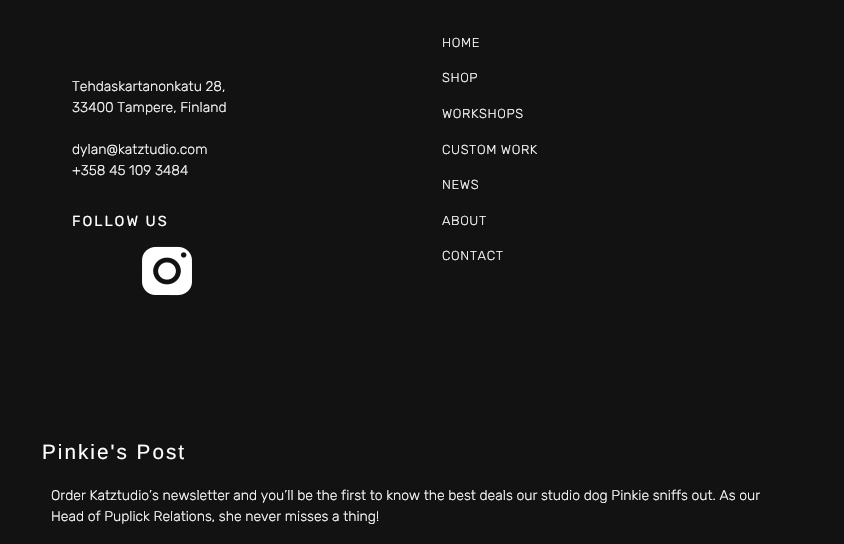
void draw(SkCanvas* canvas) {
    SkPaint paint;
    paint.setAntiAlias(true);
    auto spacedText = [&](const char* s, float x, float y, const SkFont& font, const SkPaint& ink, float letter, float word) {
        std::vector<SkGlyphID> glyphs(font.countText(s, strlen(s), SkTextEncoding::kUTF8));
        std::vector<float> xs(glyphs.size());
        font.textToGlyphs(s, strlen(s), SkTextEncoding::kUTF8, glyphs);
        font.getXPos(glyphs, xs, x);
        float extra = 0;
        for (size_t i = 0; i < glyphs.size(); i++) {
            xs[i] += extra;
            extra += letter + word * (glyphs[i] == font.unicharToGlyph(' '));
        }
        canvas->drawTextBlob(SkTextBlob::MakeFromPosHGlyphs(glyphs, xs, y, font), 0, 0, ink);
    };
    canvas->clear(0xFF121212);
    SkFont font1(fontMgr->matchFamilyStyle("Rubik", SkFontStyle(300, SkFontStyle::kNormal_Width, SkFontStyle::kUpright_Slant)), 14);
    font1.setSubpixel(true);
    paint.setColor(0xFFFFFFFF);
    canvas->drawString("Tehdaskartanonkatu 28,", 72, 91, font1, paint);
    canvas->drawString("33400 Tampere, Finland", 72, 112, font1, paint);
    canvas->drawString("dylan@katztudio.com", 72, 154, font1, paint);
    canvas->drawString("+358 45 109 3484", 72, 175, font1, paint);
    SkFont font2(fontMgr->matchFamilyStyle("Rubik", SkFontStyle::Normal()), 14.5f);
    font2.setSubpixel(true);
    spacedText("FOLLOW US", 72, 226, font2, paint, 2, 0);
    canvas->drawImageRect(SkImages::DeferredFromEncodedData(SkData::MakeFromFileName("img1.png")), SkRect::MakeXYWH(142, 246, 50, 50), SkSamplingOptions());
    SkFont font3(fontMgr->matchFamilyStyle("Rubik", SkFontStyle(300, SkFontStyle::kNormal_Width, SkFontStyle::kUpright_Slant)), 13);
    font3.setSubpixel(true);
    spacedText("HOME", 442, 47, font3, paint, 0.6f, 0);
    spacedText("SHOP", 442, 82, font3, paint, 0.6f, 0);
    spacedText("WORKSHOPS", 442, 118, font3, paint, 0.6f, 0);
    spacedText("CUSTOM WORK", 442, 154, font3, paint, 0.6f, 0);
    spacedText("NEWS", 442, 189, font3, paint, 0.6f, 0);
    spacedText("ABOUT", 442, 225, font3, paint, 0.6f, 0);
    spacedText("CONTACT", 442, 260, font3, paint, 0.6f, 0);
    SkFont font4(fontMgr->matchFamilyStyle("Liberation Sans", SkFontStyle::Normal()), 20.75f);
    font4.setSubpixel(true);
    spacedText("Pinkie's Post", 42, 459, font4, paint, 2, 0);
    canvas->drawString("Order Katztudio’s newsletter and you’ll be the first to know the best deals our studio dog Pinkie sniffs out. As our", 51, 500, font1, paint);
    canvas->drawString("Head of Puplick Relations, she never misses a thing!", 51, 521, font1, paint);
}
